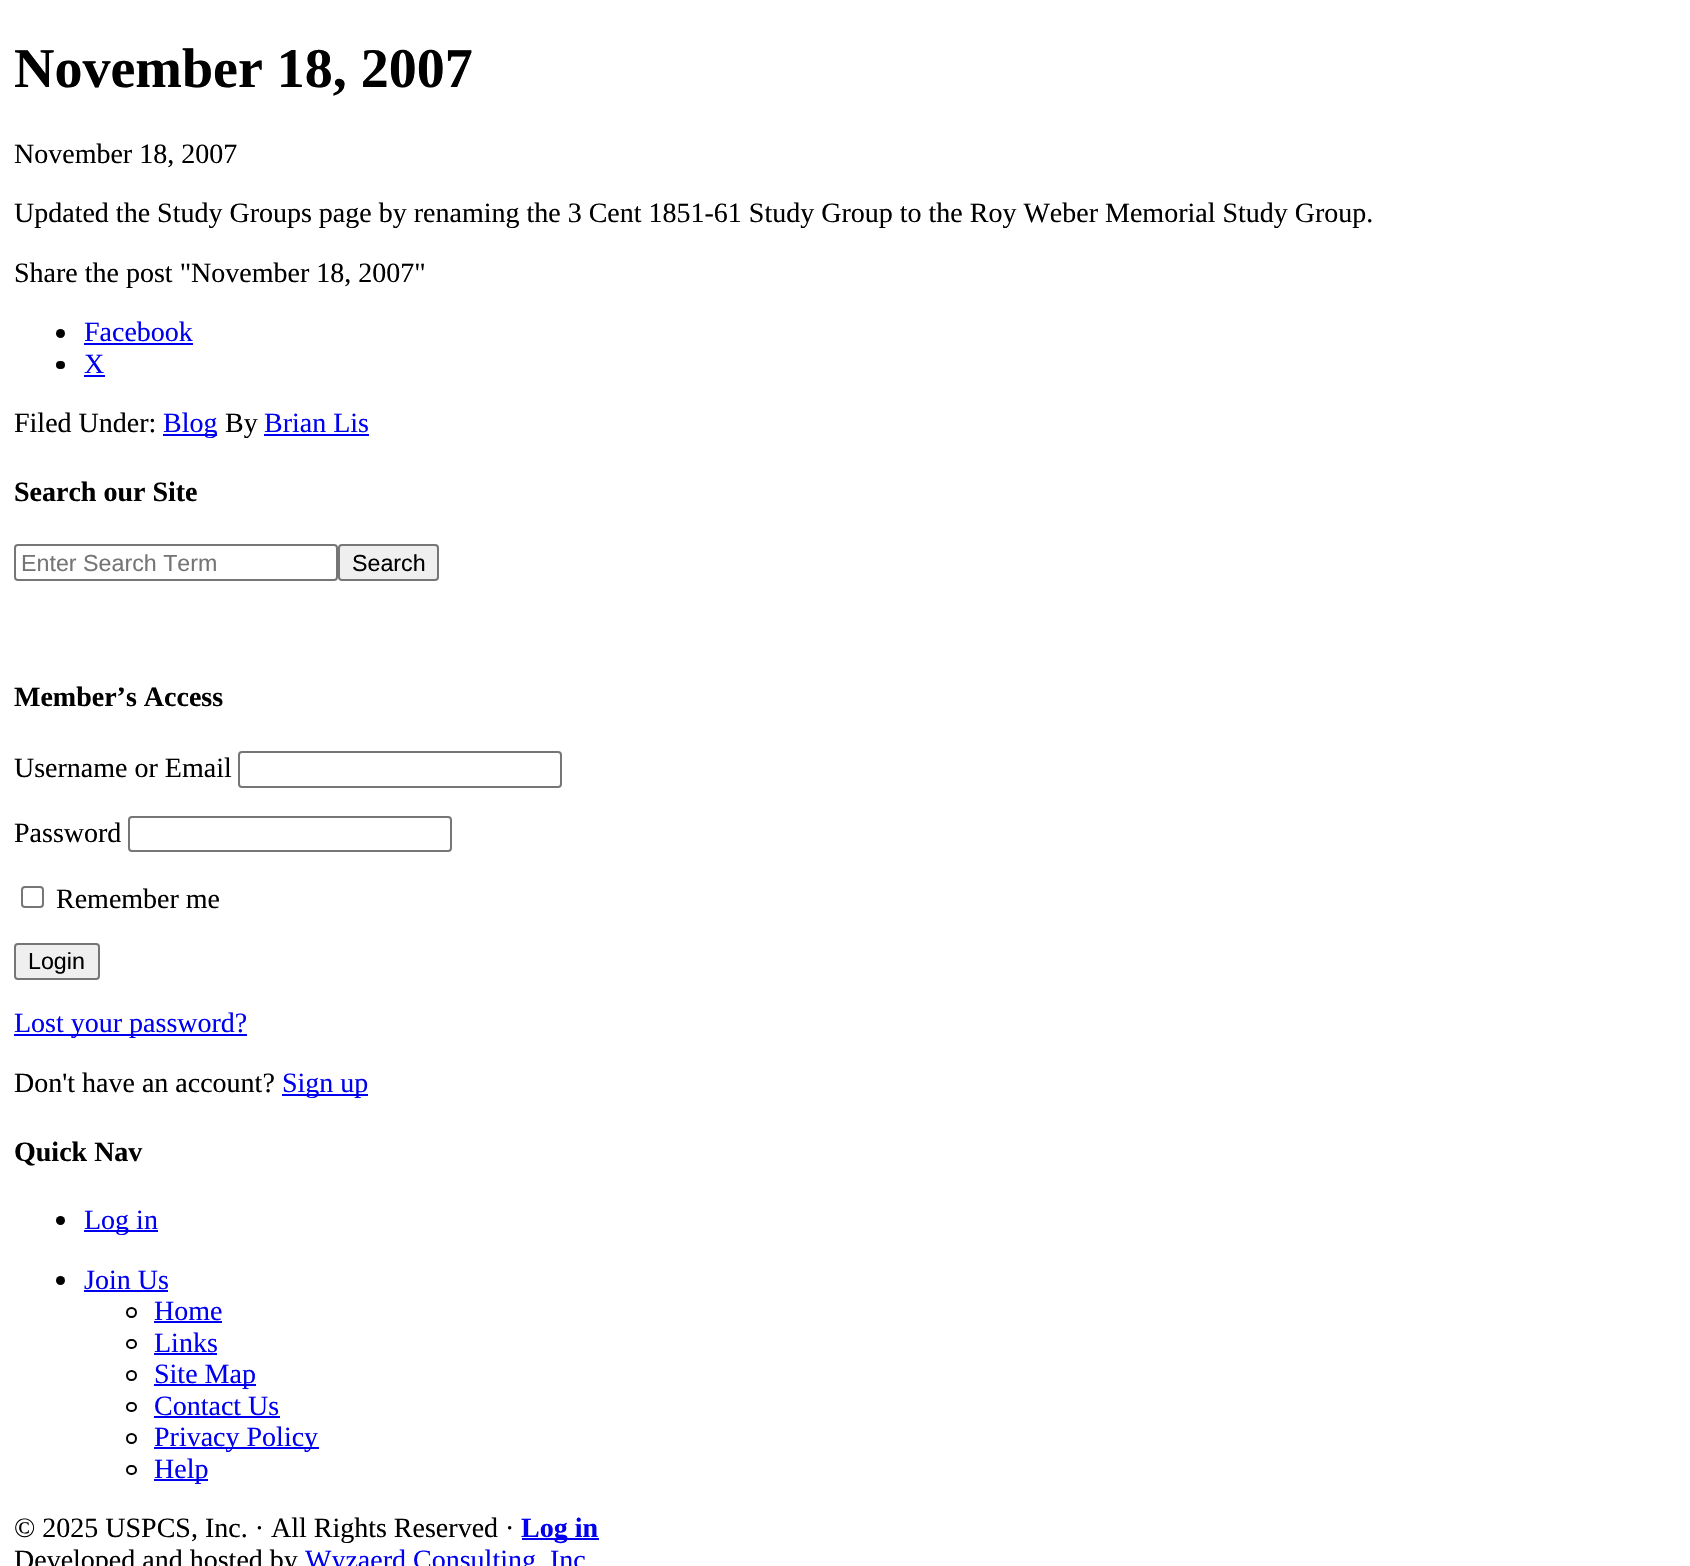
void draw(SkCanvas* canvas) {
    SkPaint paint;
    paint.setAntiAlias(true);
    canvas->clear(0xFFFFFFFF);
    SkFont font1(fontMgr->matchFamilyStyle("Liberation Serif", SkFontStyle::Bold()), 56);
    font1.setSubpixel(true);
    paint.setColor(0xFF000000);
    canvas->drawString("November 18, 2007", 14, 87, font1, paint);
    SkFont font2(fontMgr->matchFamilyStyle("Liberation Serif", SkFontStyle::Normal()), 28);
    font2.setSubpixel(true);
    canvas->drawString("November 18, 2007", 14, 163, font2, paint);
    canvas->drawString("Updated the Study Groups page by renaming the 3 Cent 1851-61 Study Group to the Roy Weber Memorial Study Group.", 14, 222, font2, paint);
    canvas->drawString("Share the post \"November 18, 2007\"", 14, 282, font2, paint);
    canvas->drawCircle(60.5f, 333.5f, 4.5f, paint);
    paint.setColor(0xFF0000EE);
    canvas->drawString("Facebook", 84, 341, font2, paint);
    canvas->drawRect(SkRect::MakeXYWH(84, 343, 109, 2), paint);
    paint.setColor(0xFF000000);
    canvas->drawRoundRect(SkRect::MakeXYWH(56, 361, 9, 8), 4, 4, paint);
    paint.setColor(0xFF0000EE);
    canvas->drawString("X", 84, 373, font2, paint);
    canvas->drawRect(SkRect::MakeXYWH(84, 375, 21, 2), paint);
    paint.setColor(0xFF000000);
    canvas->drawString("Filed Under:", 14, 432, font2, paint);
    paint.setColor(0xFF0000EE);
    canvas->drawRect(SkRect::MakeXYWH(163, 434, 54, 2), paint);
    canvas->drawString("Blog", 163, 432, font2, paint);
    paint.setColor(0xFF000000);
    canvas->drawString("By", 225, 432, font2, paint);
    paint.setColor(0xFF0000EE);
    canvas->drawString("Brian Lis", 264, 432, font2, paint);
    canvas->drawRect(SkRect::MakeXYWH(264, 434, 105, 2), paint);
    SkFont font3(fontMgr->matchFamilyStyle("Liberation Serif", SkFontStyle::Bold()), 28);
    font3.setSubpixel(true);
    paint.setColor(0xFF000000);
    canvas->drawString("Search our Site", 14, 501, font3, paint);
    paint.setStyle(SkPaint::kStroke_Style);
    paint.setStrokeWidth(2);
    paint.setColor(0xFF767676);
    canvas->drawRoundRect(SkRect::MakeXYWH(15, 545, 322, 35), 3, 3, paint);
    SkFont font4(fontMgr->matchFamilyStyle("Liberation Sans", SkFontStyle::Normal()), 23.25f);
    font4.setSubpixel(true);
    paint.setStyle(SkPaint::kFill_Style);
    paint.setColor(0xFF757575);
    canvas->drawString("Enter Search Term", 21, 571, font4, paint);
    paint.setColor(0xFFEFEFEF);
    canvas->drawRoundRect(SkRect::MakeXYWH(339, 545, 99, 35), 3, 3, paint);
    paint.setStyle(SkPaint::kStroke_Style);
    paint.setColor(0xFF767676);
    canvas->drawRoundRect(SkRect::MakeXYWH(339, 545, 99, 35), 3, 3, paint);
    paint.setStyle(SkPaint::kFill_Style);
    paint.setColor(0xFF000000);
    canvas->drawString("Search", 352, 571, font4, paint);
    canvas->drawString("Member’s Access", 14, 706, font3, paint);
    canvas->drawString("Username or Email", 14, 777, font2, paint);
    paint.setStyle(SkPaint::kStroke_Style);
    paint.setColor(0xFF767676);
    canvas->drawRoundRect(SkRect::MakeXYWH(239, 752, 322, 35), 3, 3, paint);
    paint.setStyle(SkPaint::kFill_Style);
    paint.setColor(0xFF000000);
    canvas->drawString("Password", 14, 842, font2, paint);
    paint.setStyle(SkPaint::kStroke_Style);
    paint.setColor(0xFF767676);
    canvas->drawRoundRect(SkRect::MakeXYWH(129, 817, 322, 34), 3, 3, paint);
    canvas->drawRoundRect(SkRect::MakeXYWH(22, 887, 21, 20), 3, 3, paint);
    paint.setStyle(SkPaint::kFill_Style);
    paint.setColor(0xFF000000);
    canvas->drawString("Remember me", 56, 908, font2, paint);
    paint.setColor(0xFFEFEFEF);
    canvas->drawRoundRect(SkRect::MakeXYWH(15, 944, 84, 35), 3, 3, paint);
    paint.setStyle(SkPaint::kStroke_Style);
    paint.setColor(0xFF767676);
    canvas->drawRoundRect(SkRect::MakeXYWH(15, 944, 84, 35), 3, 3, paint);
    paint.setStyle(SkPaint::kFill_Style);
    paint.setColor(0xFF000000);
    canvas->drawString("Login", 28, 969, font4, paint);
    paint.setColor(0xFF0000EE);
    canvas->drawRect(SkRect::MakeXYWH(14, 1034, 233, 2), paint);
    canvas->drawString("Lost your password?", 14, 1032, font2, paint);
    paint.setColor(0xFF000000);
    canvas->drawString("Don't have an account?", 14, 1092, font2, paint);
    paint.setColor(0xFF0000EE);
    canvas->drawRect(SkRect::MakeXYWH(282, 1094, 86, 2), paint);
    canvas->drawString("Sign up", 282, 1092, font2, paint);
    paint.setColor(0xFF000000);
    canvas->drawString("Quick Nav", 14, 1161, font3, paint);
    canvas->drawCircle(60.5f, 1220.5f, 4.5f, paint);
    paint.setColor(0xFF0000EE);
    canvas->drawRect(SkRect::MakeXYWH(84, 1230, 74, 2), paint);
    canvas->drawString("Log in", 84, 1229, font2, paint);
    paint.setColor(0xFF000000);
    canvas->drawCircle(60.5f, 1280.5f, 4.5f, paint);
    paint.setColor(0xFF0000EE);
    canvas->drawString("Join Us", 84, 1289, font2, paint);
    canvas->drawRect(SkRect::MakeXYWH(84, 1290, 84, 2), paint);
    paint.setStyle(SkPaint::kStroke_Style);
    paint.setColor(0xFF000000);
    canvas->drawCircle(131.5f, 1312.5f, 4.5f, paint);
    paint.setStyle(SkPaint::kFill_Style);
    paint.setColor(0xFF0000EE);
    canvas->drawString("Home", 154, 1320, font2, paint);
    canvas->drawRect(SkRect::MakeXYWH(154, 1321, 68, 2), paint);
    paint.setStyle(SkPaint::kStroke_Style);
    paint.setColor(0xFF000000);
    canvas->drawRoundRect(SkRect::MakeXYWH(127, 1340, 9, 8), 4, 4, paint);
    paint.setStyle(SkPaint::kFill_Style);
    paint.setColor(0xFF0000EE);
    canvas->drawString("Links", 154, 1352, font2, paint);
    canvas->drawRect(SkRect::MakeXYWH(154, 1353, 63, 2), paint);
    paint.setStyle(SkPaint::kStroke_Style);
    paint.setColor(0xFF000000);
    canvas->drawCircle(131.5f, 1375.5f, 4.5f, paint);
    paint.setStyle(SkPaint::kFill_Style);
    paint.setColor(0xFF0000EE);
    canvas->drawRect(SkRect::MakeXYWH(154, 1384, 102, 2), paint);
    canvas->drawString("Site Map", 154, 1383, font2, paint);
    paint.setStyle(SkPaint::kStroke_Style);
    paint.setColor(0xFF000000);
    canvas->drawRoundRect(SkRect::MakeXYWH(127, 1403, 9, 8), 4, 4, paint);
    paint.setStyle(SkPaint::kFill_Style);
    paint.setColor(0xFF0000EE);
    canvas->drawString("Contact Us", 154, 1415, font2, paint);
    canvas->drawRect(SkRect::MakeXYWH(154, 1416, 126, 2), paint);
    paint.setStyle(SkPaint::kStroke_Style);
    paint.setColor(0xFF000000);
    canvas->drawCircle(131.5f, 1438.5f, 4.5f, paint);
    paint.setStyle(SkPaint::kFill_Style);
    paint.setColor(0xFF0000EE);
    canvas->drawRect(SkRect::MakeXYWH(154, 1447, 165, 2), paint);
    canvas->drawString("Privacy Policy", 154, 1446, font2, paint);
    paint.setStyle(SkPaint::kStroke_Style);
    paint.setColor(0xFF000000);
    canvas->drawRoundRect(SkRect::MakeXYWH(127, 1466, 9, 8), 4, 4, paint);
    paint.setStyle(SkPaint::kFill_Style);
    paint.setColor(0xFF0000EE);
    canvas->drawRect(SkRect::MakeXYWH(154, 1479, 54, 2), paint);
    canvas->drawString("Help", 154, 1478, font2, paint);
    paint.setColor(0xFF000000);
    canvas->drawString("© 2025 USPCS, Inc. · All Rights Reserved ·", 14, 1537, font2, paint);
    paint.setColor(0xFF0000EE);
    canvas->drawRect(SkRect::MakeXYWH(522, 1538, 77, 2), paint);
    canvas->drawString("Log in", 521, 1537, font3, paint);
    paint.setColor(0xFF000000);
    canvas->drawString("Developed and hosted by", 14, 1569, font2, paint);
    paint.setColor(0xFF0000EE);
    canvas->drawString("Wyzaerd Consulting, Inc", 305, 1569, font2, paint);
}
